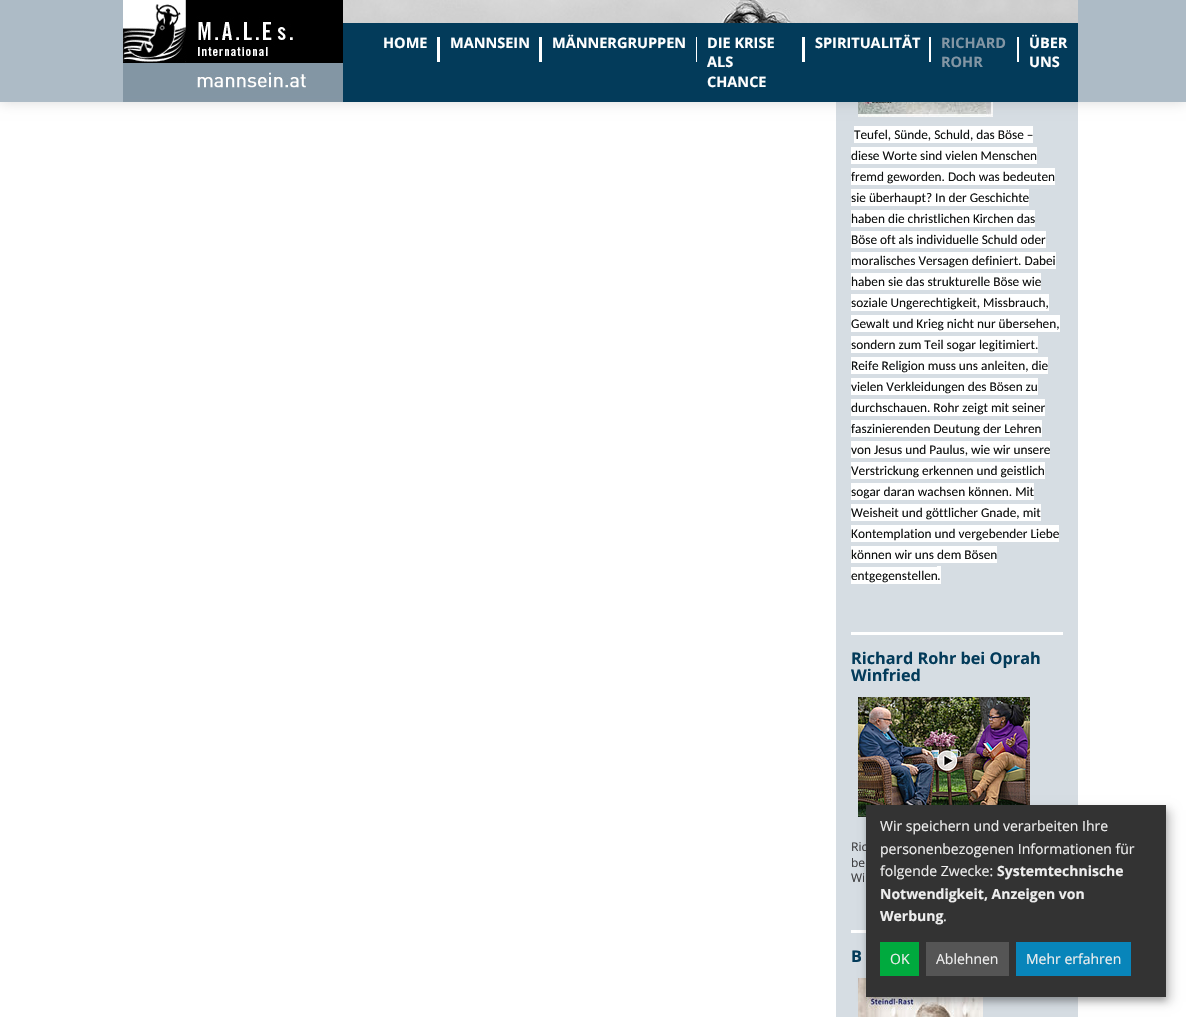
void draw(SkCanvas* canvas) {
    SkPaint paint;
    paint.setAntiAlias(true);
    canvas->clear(0xFFFFFFFF);
    paint.setColor(0xFFD6DDE3);
    canvas->drawRect(SkRect::MakeXYWH(836, 102, 242, 915), paint);
    canvas->drawImageRect(SkImages::DeferredFromEncodedData(SkData::MakeFromFileName("img3.png")), SkRect::MakeXYWH(858, 102, 135, 15), SkSamplingOptions());
    paint.setColor(0x26000000);
    paint.setMaskFilter(SkMaskFilter::MakeBlur(kNormal_SkBlurStyle, 6.5f));
    canvas->drawRect(SkRect::MakeXYWH(0, 0, 1186, 102), paint);
    paint.setMaskFilter(nullptr);
    paint.setColor(0xFFADBBC6);
    canvas->drawRect(SkRect::MakeXYWH(0, 0, 1186, 102), paint);
    canvas->drawImageRect(SkImages::DeferredFromEncodedData(SkData::MakeFromFileName("img1.png")), SkRect::MakeXYWH(343, 0, 735, 23), SkSamplingOptions());
    canvas->drawImageRect(SkImages::DeferredFromEncodedData(SkData::MakeFromFileName("img2.png")), SkRect::MakeXYWH(123, 0, 220, 102), SkSamplingOptions());
    paint.setColor(0xFF033B5A);
    canvas->drawRect(SkRect::MakeXYWH(343, 23, 735, 79), paint);
    SkFont font1(fontMgr->matchFamilyStyle("Open Sans", SkFontStyle::Bold()), 14.5f);
    font1.setSubpixel(true);
    paint.setColor(0xFFFFFFFF);
    canvas->drawString("HOME", 383, 48, font1, paint);
    canvas->drawRect(SkRect::MakeXYWH(437, 37, 3, 25), paint);
    canvas->drawString("MANNSEIN", 450, 48, font1, paint);
    canvas->drawRect(SkRect::MakeXYWH(539, 37, 3, 25), paint);
    canvas->drawString("MÄNNERGRUPPEN", 552, 48, font1, paint);
    canvas->drawRect(SkRect::MakeXYWH(696, 37, 1, 25), paint);
    canvas->drawString("DIE KRISE", 707, 48, font1, paint);
    canvas->drawString("ALS", 707, 67, font1, paint);
    canvas->drawString("CHANCE", 707, 87, font1, paint);
    canvas->drawRect(SkRect::MakeXYWH(802, 37, 3, 25), paint);
    canvas->drawString("SPIRITUALITÄT", 815, 48, font1, paint);
    canvas->drawRect(SkRect::MakeXYWH(929, 37, 2, 25), paint);
    paint.setColor(0xFF8396A4);
    canvas->drawString("RICHARD", 941, 48, font1, paint);
    canvas->drawString("ROHR", 941, 67, font1, paint);
    paint.setColor(0xFFFFFFFF);
    canvas->drawRect(SkRect::MakeXYWH(1017, 37, 2, 25), paint);
    canvas->drawString("ÜBER", 1029, 48, font1, paint);
    canvas->drawString("UNS", 1029, 67, font1, paint);
    canvas->drawRect(SkRect::MakeXYWH(854, 126, 179, 17), paint);
    SkFont font2(fontMgr->matchFamilyStyle("Carlito", SkFontStyle::Normal()), 13.3f);
    font2.setSubpixel(true);
    paint.setColor(0xFF0F1111);
    canvas->drawString("Teufel, Sünde, Schuld, das Böse –", 854, 139, font2, paint);
    paint.setColor(0xFFFFFFFF);
    canvas->drawRect(SkRect::MakeXYWH(851, 147, 186, 17), paint);
    paint.setColor(0xFF0F1111);
    canvas->drawString("diese Worte sind vielen Menschen", 851, 160, font2, paint);
    paint.setColor(0xFFFFFFFF);
    canvas->drawRect(SkRect::MakeXYWH(851, 168, 204, 17), paint);
    paint.setColor(0xFF0F1111);
    canvas->drawString("fremd geworden. Doch was bedeuten", 851, 181, font2, paint);
    paint.setColor(0xFFFFFFFF);
    canvas->drawRect(SkRect::MakeXYWH(851, 189, 178, 17), paint);
    paint.setColor(0xFF0F1111);
    canvas->drawString("sie überhaupt? In der Geschichte", 851, 202, font2, paint);
    paint.setColor(0xFFFFFFFF);
    canvas->drawRect(SkRect::MakeXYWH(851, 210, 184, 17), paint);
    paint.setColor(0xFF0F1111);
    canvas->drawString("haben die christlichen Kirchen das", 851, 223, font2, paint);
    paint.setColor(0xFFFFFFFF);
    canvas->drawRect(SkRect::MakeXYWH(851, 231, 195, 17), paint);
    paint.setColor(0xFF0F1111);
    canvas->drawString("Böse oft als individuelle Schuld oder", 851, 244, font2, paint);
    paint.setColor(0xFFFFFFFF);
    canvas->drawRect(SkRect::MakeXYWH(851, 252, 205, 17), paint);
    paint.setColor(0xFF0F1111);
    canvas->drawString("moralisches Versagen definiert. Dabei", 851, 265, font2, paint);
    paint.setColor(0xFFFFFFFF);
    canvas->drawRect(SkRect::MakeXYWH(851, 273, 190, 17), paint);
    paint.setColor(0xFF0F1111);
    canvas->drawString("haben sie das strukturelle Böse wie", 851, 286, font2, paint);
    paint.setColor(0xFFFFFFFF);
    canvas->drawRect(SkRect::MakeXYWH(851, 294, 198, 17), paint);
    paint.setColor(0xFF0F1111);
    canvas->drawString("soziale Ungerechtigkeit, Missbrauch,", 851, 307, font2, paint);
    paint.setColor(0xFFFFFFFF);
    canvas->drawRect(SkRect::MakeXYWH(851, 315, 209, 17), paint);
    paint.setColor(0xFF0F1111);
    canvas->drawString("Gewalt und Krieg nicht nur übersehen,", 851, 328, font2, paint);
    paint.setColor(0xFFFFFFFF);
    canvas->drawRect(SkRect::MakeXYWH(851, 336, 187, 17), paint);
    paint.setColor(0xFF0F1111);
    canvas->drawString("sondern zum Teil sogar legitimiert.", 851, 349, font2, paint);
    paint.setColor(0xFFFFFFFF);
    canvas->drawRect(SkRect::MakeXYWH(851, 357, 197, 17), paint);
    paint.setColor(0xFF0F1111);
    canvas->drawString("Reife Religion muss uns anleiten, die", 851, 370, font2, paint);
    paint.setColor(0xFFFFFFFF);
    canvas->drawRect(SkRect::MakeXYWH(851, 378, 187, 17), paint);
    paint.setColor(0xFF0F1111);
    canvas->drawString("vielen Verkleidungen des Bösen zu", 851, 391, font2, paint);
    paint.setColor(0xFFFFFFFF);
    canvas->drawRect(SkRect::MakeXYWH(851, 399, 194, 17), paint);
    paint.setColor(0xFF0F1111);
    canvas->drawString("durchschauen. Rohr zeigt mit seiner", 851, 412, font2, paint);
    paint.setColor(0xFFFFFFFF);
    canvas->drawRect(SkRect::MakeXYWH(851, 420, 191, 17), paint);
    paint.setColor(0xFF0F1111);
    canvas->drawString("faszinierenden Deutung der Lehren", 851, 433, font2, paint);
    paint.setColor(0xFFFFFFFF);
    canvas->drawRect(SkRect::MakeXYWH(851, 441, 199, 17), paint);
    paint.setColor(0xFF0F1111);
    canvas->drawString("von Jesus und Paulus, wie wir unsere", 851, 454, font2, paint);
    paint.setColor(0xFFFFFFFF);
    canvas->drawRect(SkRect::MakeXYWH(851, 462, 194, 17), paint);
    paint.setColor(0xFF0F1111);
    canvas->drawString("Verstrickung erkennen und geistlich", 851, 475, font2, paint);
    paint.setColor(0xFFFFFFFF);
    canvas->drawRect(SkRect::MakeXYWH(851, 483, 183, 17), paint);
    paint.setColor(0xFF0F1111);
    canvas->drawString("sogar daran wachsen können. Mit", 851, 496, font2, paint);
    paint.setColor(0xFFFFFFFF);
    canvas->drawRect(SkRect::MakeXYWH(851, 504, 190, 17), paint);
    paint.setColor(0xFF0F1111);
    canvas->drawString("Weisheit und göttlicher Gnade, mit", 851, 517, font2, paint);
    paint.setColor(0xFFFFFFFF);
    canvas->drawRect(SkRect::MakeXYWH(851, 525, 208, 17), paint);
    paint.setColor(0xFF0F1111);
    canvas->drawString("Kontemplation und vergebender Liebe", 851, 538, font2, paint);
    paint.setColor(0xFFFFFFFF);
    canvas->drawRect(SkRect::MakeXYWH(851, 546, 146, 17), paint);
    paint.setColor(0xFF0F1111);
    canvas->drawString("können wir uns dem Bösen", 851, 559, font2, paint);
    paint.setColor(0xFFFFFFFF);
    canvas->drawRect(SkRect::MakeXYWH(851, 567, 86, 17), paint);
    paint.setColor(0xFF0F1111);
    canvas->drawString("entgegenstellen", 851, 580, font2, paint);
    paint.setColor(0xFFFFFFFF);
    canvas->drawRect(SkRect::MakeXYWH(937, 566, 4, 18), paint);
    SkFont font3(fontMgr->matchFamilyStyle("Liberation Sans", SkFontStyle::Normal()), 13.3f);
    font3.setSubpixel(true);
    paint.setColor(0xFF0F1111);
    canvas->drawString(".", 937, 580, font3, paint);
    paint.setColor(0xFFFFFFFF);
    canvas->drawRect(SkRect::MakeXYWH(851, 632, 212, 3), paint);
    SkFont font4(fontMgr->matchFamilyStyle("Open Sans", SkFontStyle::Bold()), 16.25f);
    font4.setSubpixel(true);
    paint.setColor(0xFF033B5A);
    canvas->drawString("Richard Rohr bei Oprah", 851, 664, font4, paint);
    canvas->drawString("Winfried", 851, 681, font4, paint);
    canvas->drawImageRect(SkImages::DeferredFromEncodedData(SkData::MakeFromFileName("img4.png")), SkRect::MakeXYWH(858, 697, 172, 120), SkSamplingOptions());
    SkFont font5(fontMgr->matchFamilyStyle("Open Sans", SkFontStyle::Normal()), 12);
    font5.setSubpixel(true);
    paint.setColor(0xFF3E3E40);
    canvas->drawString("Ric", 851, 851, font5, paint);
    canvas->drawString("be", 851, 867, font5, paint);
    canvas->drawString("Wi", 851, 882, font5, paint);
    paint.setColor(0xFFFFFFFF);
    canvas->drawRect(SkRect::MakeXYWH(851, 930, 15, 3), paint);
    paint.setColor(0xFF033B5A);
    canvas->drawString("B", 851, 962, font4, paint);
    canvas->drawImageRect(SkImages::DeferredFromEncodedData(SkData::MakeFromFileName("img5.png")), SkRect::MakeXYWH(858, 978, 125, 39), SkSamplingOptions());
    paint.setColor(0x30000000);
    paint.setMaskFilter(SkMaskFilter::MakeBlur(kNormal_SkBlurStyle, 5));
    canvas->drawRect(SkRect::MakeXYWH(871, 810, 300, 192), paint);
    paint.setMaskFilter(nullptr);
    paint.setColor(0x33000000);
    paint.setMaskFilter(SkMaskFilter::MakeBlur(kNormal_SkBlurStyle, 3));
    canvas->drawRect(SkRect::MakeXYWH(866, 809, 300, 192), paint);
    paint.setMaskFilter(nullptr);
    paint.setColor(0xFF333333);
    canvas->drawRect(SkRect::MakeXYWH(866, 805, 300, 192), paint);
    SkFont font6(fontMgr->matchFamilyStyle("Open Sans", SkFontStyle::Normal()), 14);
    font6.setSubpixel(true);
    paint.setColor(0xFFEEEEEE);
    canvas->drawString("Wir speichern und verarbeiten Ihre", 880, 831, font6, paint);
    canvas->drawString("personenbezogenen Informationen für", 880, 854, font6, paint);
    canvas->drawString("folgende Zwecke:", 880, 876, font6, paint);
    SkFont font7(fontMgr->matchFamilyStyle("Open Sans", SkFontStyle::Bold()), 14);
    font7.setSubpixel(true);
    canvas->drawString("Systemtechnische", 997, 876, font7, paint);
    canvas->drawString("Notwendigkeit, Anzeigen von", 880, 899, font7, paint);
    canvas->drawString("Werbung", 880, 921, font7, paint);
    canvas->drawString(".", 943, 921, font6, paint);
    paint.setColor(0xFF00AA3E);
    canvas->drawRect(SkRect::MakeXYWH(880, 942, 39, 34), paint);
    paint.setColor(0xFFEEEEEE);
    canvas->drawString("OK", 890, 964, font6, paint);
    paint.setColor(0xFF555555);
    canvas->drawRect(SkRect::MakeXYWH(926, 942, 83, 34), paint);
    paint.setColor(0xFFEEEEEE);
    canvas->drawString("Ablehnen", 936, 964, font6, paint);
    paint.setColor(0xFF0885BA);
    canvas->drawRect(SkRect::MakeXYWH(1016, 942, 115, 34), paint);
    paint.setColor(0xFFEEEEEE);
    canvas->drawString("Mehr erfahren", 1026, 964, font6, paint);
}
